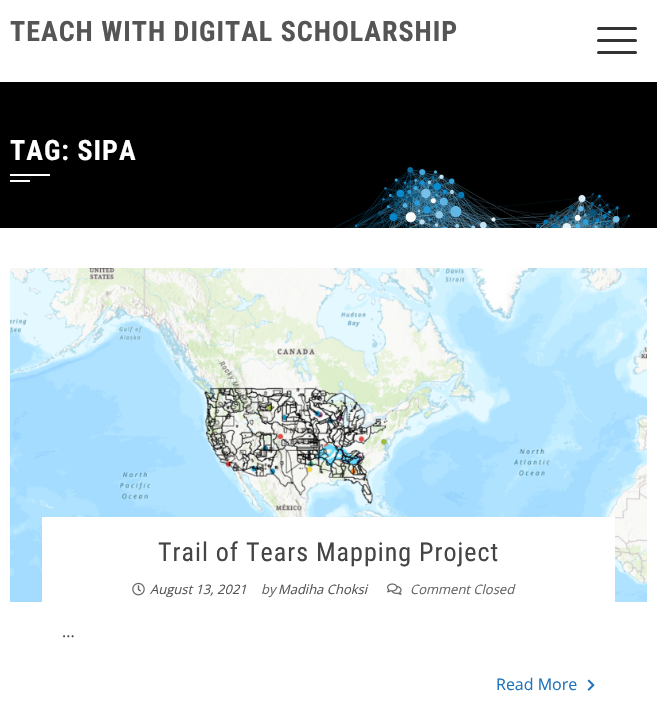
void draw(SkCanvas* canvas) {
    SkPaint paint;
    paint.setAntiAlias(true);
    auto spacedText = [&](const char* s, float x, float y, const SkFont& font, const SkPaint& ink, float letter, float word) {
        std::vector<SkGlyphID> glyphs(font.countText(s, strlen(s), SkTextEncoding::kUTF8));
        std::vector<float> xs(glyphs.size());
        font.textToGlyphs(s, strlen(s), SkTextEncoding::kUTF8, glyphs);
        font.getXPos(glyphs, xs, x);
        float extra = 0;
        for (size_t i = 0; i < glyphs.size(); i++) {
            xs[i] += extra;
            extra += letter + word * (glyphs[i] == font.unicharToGlyph(' '));
        }
        canvas->drawTextBlob(SkTextBlob::MakeFromPosHGlyphs(glyphs, xs, y, font), 0, 0, ink);
    };
    canvas->clear(0xFFFFFFFF);
    SkFont font1(fontMgr->matchFamilyStyle("Roboto Condensed", SkFontStyle::Bold()), 28);
    font1.setSubpixel(true);
    paint.setColor(0xFF555555);
    spacedText("TEACH WITH DIGITAL SCHOLARSHIP", 10, 41, font1, paint, 1, 0);
    paint.setColor(0xFF333333);
    canvas->drawRoundRect(SkRect::MakeXYWH(597, 39, 40, 3), 1.5f, 1.5f, paint);
    canvas->drawRoundRect(SkRect::MakeXYWH(597, 27, 40, 3), 1.5f, 1.5f, paint);
    canvas->drawRoundRect(SkRect::MakeXYWH(597, 51, 40, 3), 1.5f, 1.5f, paint);
    canvas->drawImageRect(SkImages::DeferredFromEncodedData(SkData::MakeFromFileName("img1.png")), SkRect::MakeXYWH(0, 82, 657, 146), SkSamplingOptions());
    paint.setColor(0xFFFFFFFF);
    spacedText("TAG: SIPA", 10, 160, font1, paint, 1, 0);
    canvas->drawRect(SkRect::MakeXYWH(10, 174, 40, 2), paint);
    canvas->drawRect(SkRect::MakeXYWH(10, 180, 20, 2), paint);
    canvas->drawImageRect(SkImages::DeferredFromEncodedData(SkData::MakeFromFileName("img2.png")), SkRect::MakeXYWH(10, 268, 637, 334), SkSamplingOptions());
    canvas->drawRect(SkRect::MakeXYWH(42, 517, 573, 85), paint);
    SkFont font2(fontMgr->matchFamilyStyle("Roboto Condensed", SkFontStyle::Normal()), 26);
    font2.setSubpixel(true);
    paint.setColor(0xFF444444);
    spacedText("Trail of Tears Mapping Project", 158, 561, font2, paint, 1, 0);
    canvas->drawImageRect(SkImages::DeferredFromEncodedData(SkData::MakeFromFileName("img3.png")), SkRect::MakeXYWH(132, 582, 13, 14), SkSamplingOptions());
    SkFont font3(fontMgr->matchFamilyStyle("Open Sans", SkFontStyle::Italic()), 13);
    font3.setSubpixel(true);
    paint.setColor(0xFF555555);
    canvas->drawString("August 13, 2021", 150, 594, font3, paint);
    paint.setColor(0xFF666666);
    canvas->drawString("by", 261, 594, font3, paint);
    paint.setColor(0xFF555555);
    canvas->drawString("Madiha Choksi", 278, 594, font3, paint);
    canvas->drawImageRect(SkImages::DeferredFromEncodedData(SkData::MakeFromFileName("img4.png")), SkRect::MakeXYWH(387, 583, 15, 12), SkSamplingOptions());
    paint.setColor(0xFF666666);
    canvas->drawString("Comment Closed", 410, 594, font3, paint);
    SkFont font4(fontMgr->matchFamilyStyle("Open Sans", SkFontStyle::Normal()), 16);
    font4.setSubpixel(true);
    paint.setColor(0xFF444444);
    canvas->drawString("...", 62, 637, font4, paint);
    paint.setColor(0xFF1E73BE);
    canvas->drawString("Read More", 496, 690, font4, paint);
    canvas->drawImageRect(SkImages::DeferredFromEncodedData(SkData::MakeFromFileName("img5.png")), SkRect::MakeXYWH(587, 679, 8, 12), SkSamplingOptions());
}
